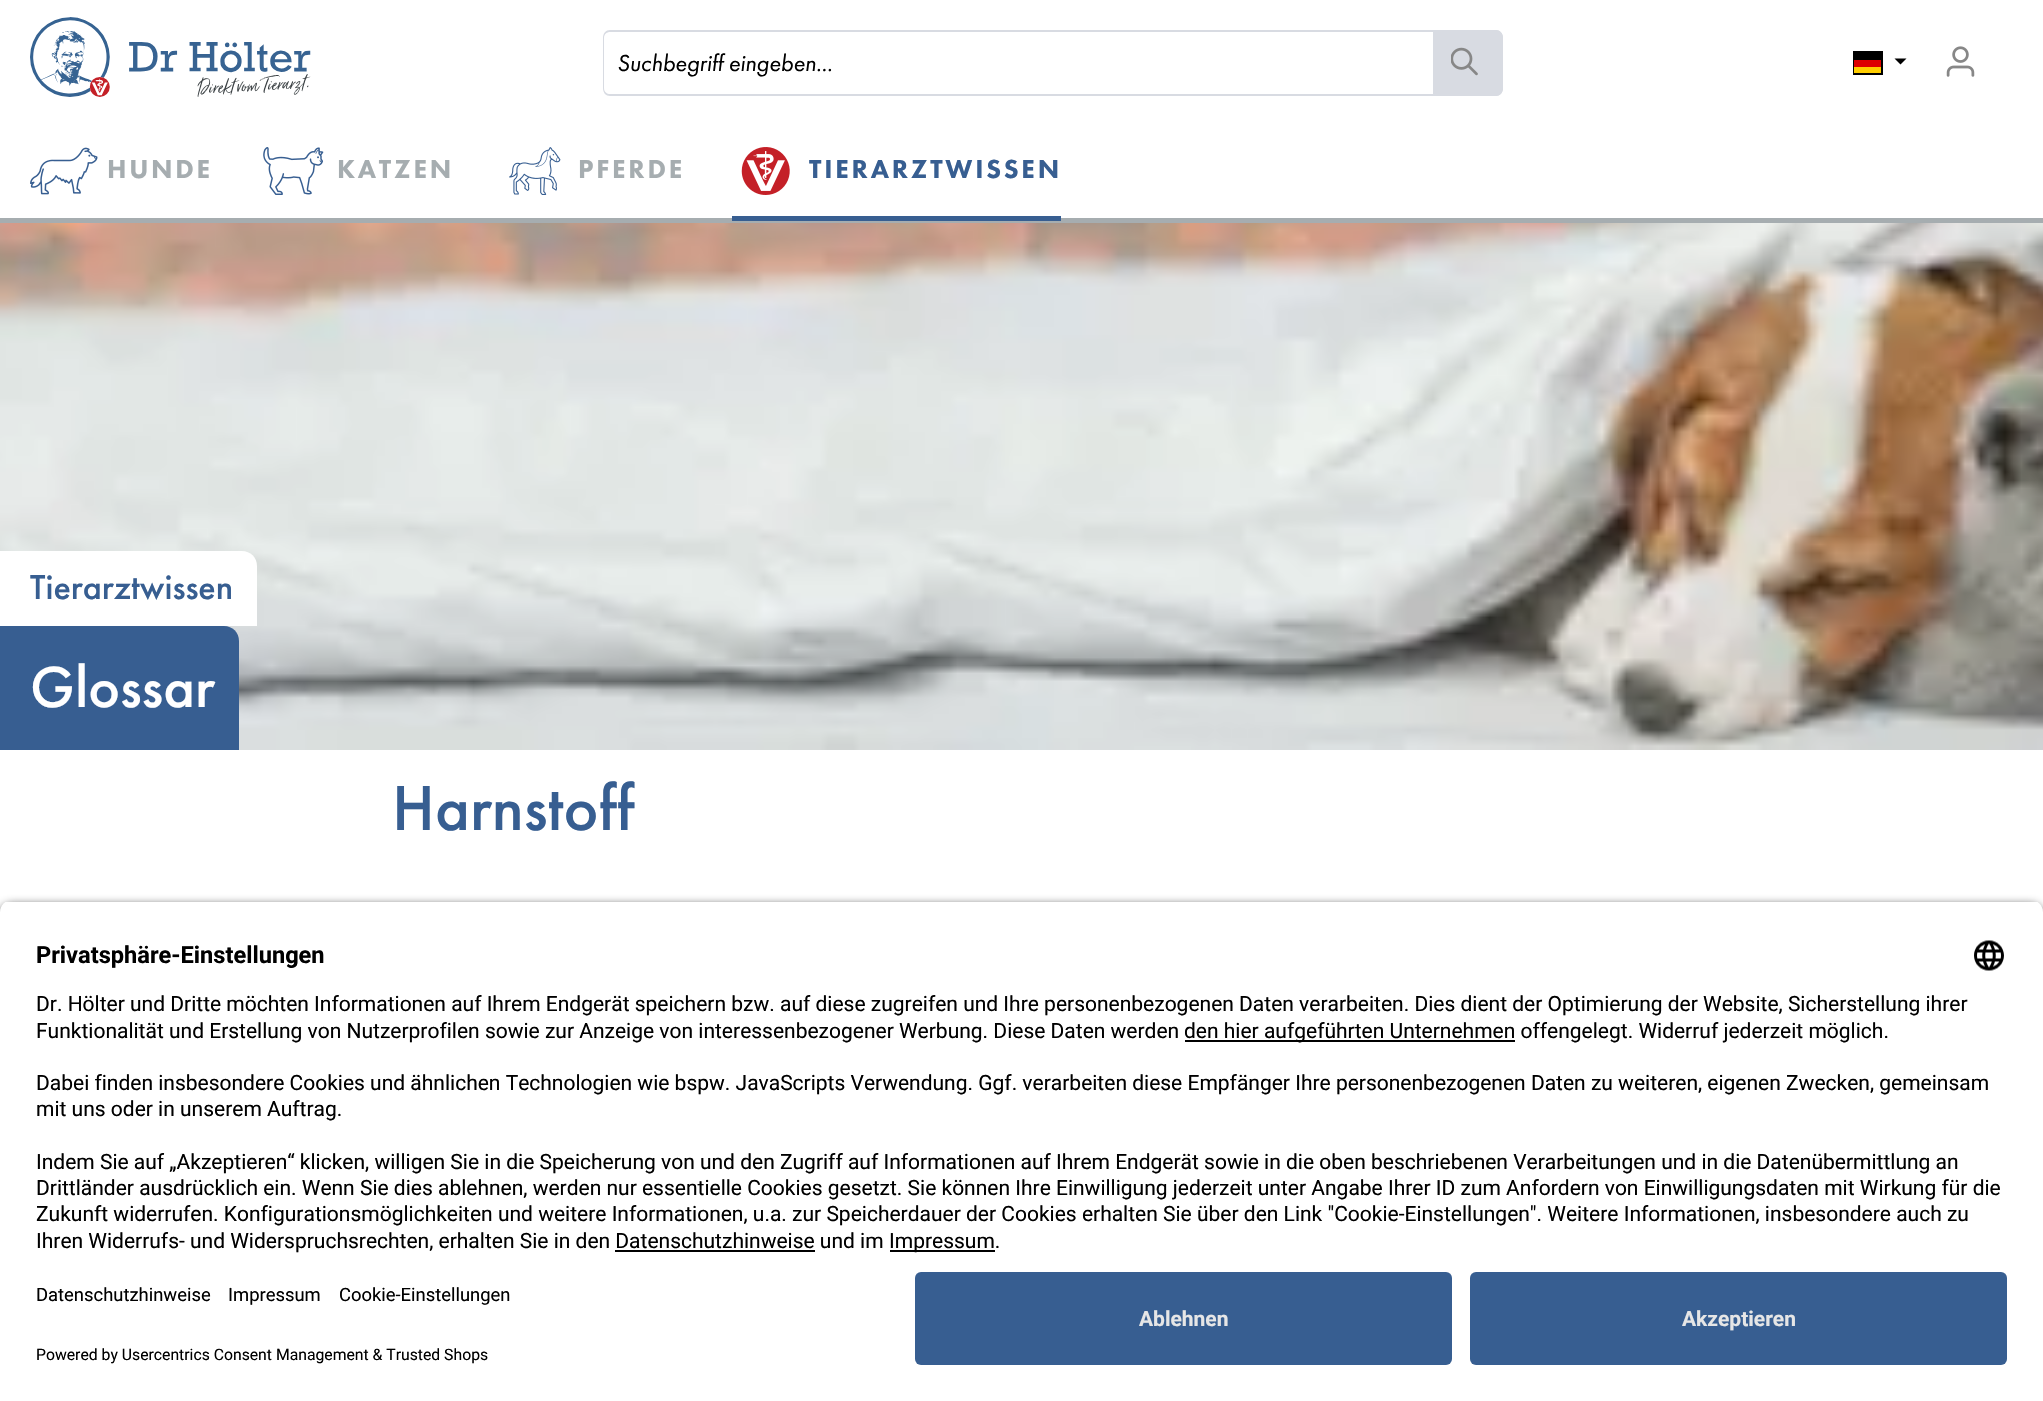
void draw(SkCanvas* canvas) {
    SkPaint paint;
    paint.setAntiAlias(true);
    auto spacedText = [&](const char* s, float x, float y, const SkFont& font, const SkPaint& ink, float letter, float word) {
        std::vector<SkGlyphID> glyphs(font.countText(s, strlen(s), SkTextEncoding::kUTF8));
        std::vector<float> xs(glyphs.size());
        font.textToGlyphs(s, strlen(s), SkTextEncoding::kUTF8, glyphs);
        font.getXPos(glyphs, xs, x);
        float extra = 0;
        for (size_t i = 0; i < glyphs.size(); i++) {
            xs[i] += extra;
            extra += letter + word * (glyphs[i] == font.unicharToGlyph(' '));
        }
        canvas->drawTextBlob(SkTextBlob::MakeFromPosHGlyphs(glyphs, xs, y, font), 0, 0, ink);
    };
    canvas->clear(0xFFFFFFFF);
    paint.setColor(0xFFA6ADB0);
    canvas->drawRect(SkRect::MakeXYWH(0, 218, 2043, 5), paint);
    canvas->drawImageRect(SkImages::DeferredFromEncodedData(SkData::MakeFromFileName("img1.png")), SkRect::MakeXYWH(30, 17, 281, 80), SkSamplingOptions());
    paint.setColor(0xFFD8DBE2);
    canvas->drawPath(SkPathBuilder(SkPathFillType::kEvenOdd).moveTo(610, 30).lineTo(1434, 30).lineTo(1434, 96).lineTo(610, 96).cubicTo(606, 96, 603, 93, 603, 88).lineTo(603, 38).cubicTo(603, 33, 606, 30, 610, 30).close().moveTo(610, 32).lineTo(1434, 32).lineTo(1434, 94).lineTo(610, 94).cubicTo(607, 94, 604, 92, 604, 88).lineTo(604, 38).cubicTo(604, 34, 607, 32, 610, 32).close().detach(), paint);
    SkFont font1(fontMgr->matchFamilyStyle("Futura PT", SkFontStyle::Italic()), 24);
    font1.setSubpixel(true);
    paint.setColor(0xFF000000);
    canvas->drawString("Suchbegriff eingeben...", 617, 71, font1, paint);
    paint.setColor(0xFFD8DBE2);
    canvas->drawPath(SkPathBuilder().moveTo(1433, 30).lineTo(1495, 30).cubicTo(1499.5f, 30, 1503, 33.5f, 1503, 38).lineTo(1503, 88).cubicTo(1503, 92.5f, 1499.5f, 96, 1495, 96).lineTo(1433, 96).close().detach(), paint);
    canvas->drawPath(SkPathBuilder(SkPathFillType::kEvenOdd).moveTo(1432, 30).lineTo(1496, 30).cubicTo(1500, 30, 1503, 33, 1503, 38).lineTo(1503, 88).cubicTo(1503, 93, 1500, 96, 1496, 96).lineTo(1432, 96).close().moveTo(1432, 32).lineTo(1496, 32).cubicTo(1499, 32, 1502, 34, 1502, 38).lineTo(1502, 88).cubicTo(1502, 92, 1499, 94, 1496, 94).lineTo(1432, 94).close().detach(), paint);
    canvas->drawImageRect(SkImages::DeferredFromEncodedData(SkData::MakeFromFileName("img2.png")), SkRect::MakeXYWH(1451, 47, 27, 29), SkSamplingOptions());
    paint.setStyle(SkPaint::kStroke_Style);
    paint.setStrokeWidth(2);
    paint.setColor(0xFF000000);
    canvas->drawRect(SkRect::MakeXYWH(1854, 52, 28, 22), paint);
    paint.setStyle(SkPaint::kFill_Style);
    canvas->drawRect(SkRect::MakeXYWH(1854, 53, 27, 7), paint);
    paint.setColor(0xFFDD0000);
    canvas->drawRect(SkRect::MakeXYWH(1854, 60, 27, 7), paint);
    paint.setColor(0xFF000000);
    canvas->drawPath(SkPathBuilder().moveTo(1894.5f, 58.5f).lineTo(1906.5f, 58.5f).lineTo(1900.5f, 64.5f).close().detach(), paint);
    paint.setColor(0xFFFFCE00);
    canvas->drawRect(SkRect::MakeXYWH(1854, 67, 27, 6), paint);
    canvas->drawImageRect(SkImages::DeferredFromEncodedData(SkData::MakeFromFileName("img3.png")), SkRect::MakeXYWH(1946, 46, 29, 31), SkSamplingOptions());
    canvas->drawImageRect(SkImages::DeferredFromEncodedData(SkData::MakeFromFileName("img4.png")), SkRect::MakeXYWH(30, 147, 68, 48), SkSamplingOptions());
    SkFont font2(fontMgr->matchFamilyStyle("Futura PT", SkFontStyle(900, SkFontStyle::kNormal_Width, SkFontStyle::kUpright_Slant)), 27);
    font2.setSubpixel(true);
    paint.setColor(0xFFA6ADB0);
    spacedText("HUNDE", 107, 178, font2, paint, 2.75f, 0);
    canvas->drawImageRect(SkImages::DeferredFromEncodedData(SkData::MakeFromFileName("img5.png")), SkRect::MakeXYWH(263, 147, 61, 48), SkSamplingOptions());
    spacedText("KATZEN", 337, 178, font2, paint, 2.75f, 0);
    canvas->drawImageRect(SkImages::DeferredFromEncodedData(SkData::MakeFromFileName("img6.png")), SkRect::MakeXYWH(509, 147, 52, 48), SkSamplingOptions());
    spacedText("PFERDE", 578, 178, font2, paint, 2.75f, 0);
    paint.setColor(0xFF375E91);
    canvas->drawRect(SkRect::MakeXYWH(732, 216, 329, 5), paint);
    canvas->drawImageRect(SkImages::DeferredFromEncodedData(SkData::MakeFromFileName("img7.png")), SkRect::MakeXYWH(741, 147, 49, 48), SkSamplingOptions());
    spacedText("TIERARZTWISSEN", 809, 178, font2, paint, 2.75f, 0);
    canvas->drawImageRect(SkImages::DeferredFromEncodedData(SkData::MakeFromFileName("img8.png")), SkRect::MakeXYWH(0, 223, 2043, 527), SkSamplingOptions());
    paint.setColor(0xFFFFFFFF);
    canvas->drawRect(SkRect::MakeXYWH(0, 551, 30, 75), paint);
    canvas->drawPath(SkPathBuilder().moveTo(30, 551).lineTo(242, 551).cubicTo(250.5f, 551, 257, 557.5f, 257, 566).lineTo(257, 626).lineTo(30, 626).close().detach(), paint);
    SkFont font3(fontMgr->matchFamilyStyle("Futura PT", SkFontStyle(500, SkFontStyle::kNormal_Width, SkFontStyle::kUpright_Slant)), 36);
    font3.setSubpixel(true);
    paint.setColor(0xFF375E91);
    canvas->drawString("Tierarztwissen", 30, 599, font3, paint);
    canvas->drawPath(SkPathBuilder().moveTo(30, 626).lineTo(224, 626).cubicTo(232.5f, 626, 239, 632.5f, 239, 641).lineTo(239, 750).lineTo(30, 750).close().detach(), paint);
    SkFont font4(fontMgr->matchFamilyStyle("Futura PT", SkFontStyle(500, SkFontStyle::kNormal_Width, SkFontStyle::kUpright_Slant)), 60);
    font4.setSubpixel(true);
    paint.setColor(0xFFFFFFFF);
    canvas->drawString("Glossar", 30, 707, font4, paint);
    paint.setColor(0xFF375E91);
    canvas->drawRect(SkRect::MakeXYWH(0, 626, 30, 124), paint);
    SkFont font5(fontMgr->matchFamilyStyle("Futura PT", SkFontStyle(500, SkFontStyle::kNormal_Width, SkFontStyle::kUpright_Slant)), 66);
    font5.setSubpixel(true);
    canvas->drawString("Harnstoff", 392, 830, font5, paint);
    paint.setColor(0xCC000000);
    paint.setMaskFilter(SkMaskFilter::MakeBlur(kNormal_SkBlurStyle, 5));
    canvas->drawRoundRect(SkRect::MakeXYWH(0, 905, 2043, 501), 12, 12, paint);
    paint.setMaskFilter(nullptr);
    canvas->save();
    canvas->clipPath(SkPathBuilder().moveTo(12, 900).lineTo(2031, 900).cubicTo(2037.5f, 900, 2043, 905.5f, 2043, 912).lineTo(2043, 1260).lineTo(0, 1260).lineTo(0, 912).cubicTo(0, 905.5f, 5.5f, 900, 12, 900).close().detach(), true);
    paint.setColor(0xFFFFFFFF);
    canvas->drawRect(SkRect::MakeXYWH(0, 902, 2043, 358), paint);
    canvas->restore();
    SkFont font6(fontMgr->matchFamilyStyle("Roboto", SkFontStyle::Bold()), 23.6f);
    font6.setSubpixel(true);
    paint.setColor(0xFF000000);
    canvas->drawString("Privatsphäre-Einstellungen", 36, 963, font6, paint);
    canvas->drawImageRect(SkImages::DeferredFromEncodedData(SkData::MakeFromFileName("img9.png")), SkRect::MakeXYWH(1974, 940, 30, 31), SkSamplingOptions());
    SkFont font7(fontMgr->matchFamilyStyle("Roboto", SkFontStyle::Normal()), 21);
    font7.setSubpixel(true);
    canvas->drawString("Dr. Hölter und Dritte möchten Informationen auf Ihrem Endgerät speichern bzw. auf diese zugreifen und Ihre personenbezogenen Daten verarbeiten. Dies dient der Optimierung der Website, Sicherstellung ihrer", 36, 1011, font7, paint);
    canvas->drawString("Funktionalität und Erstellung von Nutzerprofilen sowie zur Anzeige von interessenbezogener Werbung. Diese Daten werden", 36, 1038, font7, paint);
    canvas->drawRect(SkRect::MakeXYWH(1185, 1040, 330, 2), paint);
    canvas->drawString("den hier aufgeführten Unternehmen offengelegt. Widerruf jederzeit möglich.", 1184, 1038, font7, paint);
    canvas->drawString("Dabei finden insbesondere Cookies und ähnlichen Technologien wie bspw. JavaScripts Verwendung. Ggf. verarbeiten diese Empfänger Ihre personenbezogenen Daten zu weiteren, eigenen Zwecken, gemeinsam", 36, 1090, font7, paint);
    canvas->drawString("mit uns oder in unserem Auftrag.", 36, 1116, font7, paint);
    canvas->drawString("Indem Sie auf „Akzeptieren“ klicken, willigen Sie in die Speicherung von und den Zugriff auf Informationen auf Ihrem Endgerät sowie in die oben beschriebenen Verarbeitungen und in die Datenübermittlung an", 36, 1169, font7, paint);
    canvas->drawString("Drittländer ausdrücklich ein. Wenn Sie dies ablehnen, werden nur essentielle Cookies gesetzt. Sie können Ihre Einwilligung jederzeit unter Angabe Ihrer ID zum Anfordern von Einwilligungsdaten mit Wirkung für die", 36, 1195, font7, paint);
    canvas->drawString("Zukunft widerrufen. Konfigurationsmöglichkeiten und weitere Informationen, u.a. zur Speicherdauer der Cookies erhalten Sie über den Link \"Cookie-Einstellungen\". Weitere Informationen, insbesondere auch zu", 36, 1221, font7, paint);
    canvas->drawString("Ihren Widerrufs- und Widerspruchsrechten, erhalten Sie in den Datenschutzhinweise und im", 36, 1248, font7, paint);
    canvas->drawRect(SkRect::MakeXYWH(890, 1250, 105, 2), paint);
    canvas->drawString("Impressum.", 889, 1248, font7, paint);
    canvas->drawRect(SkRect::MakeXYWH(615, 1250, 200, 2), paint);
    paint.setColor(0xFFFFFFFF);
    canvas->drawRect(SkRect::MakeXYWH(0, 1260, 2043, 141), paint);
    SkFont font8(fontMgr->matchFamilyStyle("Roboto", SkFontStyle::Normal()), 18.4f);
    font8.setSubpixel(true);
    paint.setColor(0xFF000000);
    canvas->drawString("Datenschutzhinweise", 36, 1301, font8, paint);
    canvas->drawString("Impressum", 228, 1301, font8, paint);
    canvas->drawString("Cookie-Einstellungen", 339, 1301, font8, paint);
    SkFont font9(fontMgr->matchFamilyStyle("Roboto", SkFontStyle::Normal()), 15.75f);
    font9.setSubpixel(true);
    canvas->drawString("Powered by Usercentrics Consent Management & Trusted Shops", 36, 1360, font9, paint);
    paint.setColor(0xFF375E91);
    canvas->drawRoundRect(SkRect::MakeXYWH(915, 1272, 537, 93), 6, 6, paint);
    SkFont font10(fontMgr->matchFamilyStyle("Roboto", SkFontStyle::Bold()), 21);
    font10.setSubpixel(true);
    paint.setColor(0xFFE6E6E6);
    canvas->drawString("Ablehnen", 1139, 1326, font10, paint);
    paint.setColor(0xFF375E91);
    canvas->drawRoundRect(SkRect::MakeXYWH(1470, 1272, 537, 93), 6, 6, paint);
    paint.setColor(0xFFE6E6E6);
    canvas->drawString("Akzeptieren", 1682, 1326, font10, paint);
}
